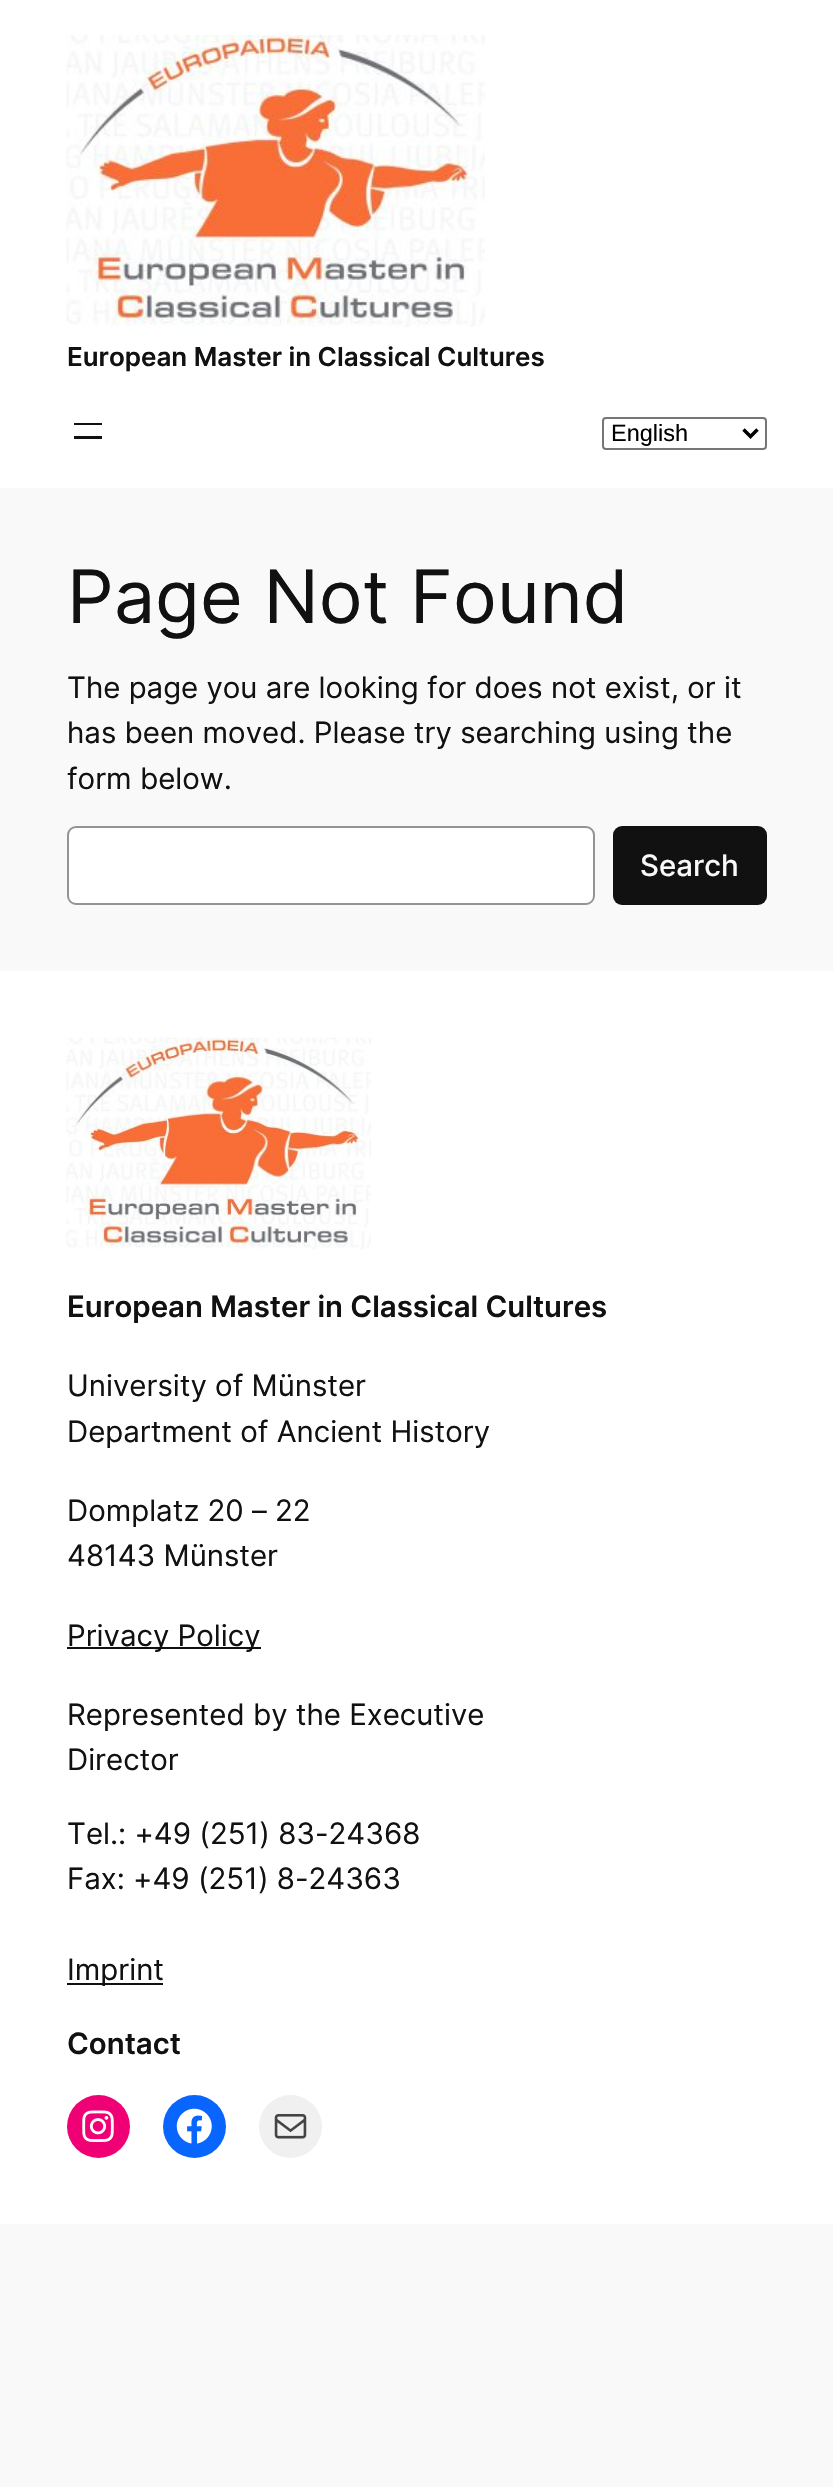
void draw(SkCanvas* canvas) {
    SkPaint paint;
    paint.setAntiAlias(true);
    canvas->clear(0xFFF9F9F9);
    paint.setColor(0xFFFFFFFF);
    canvas->drawRect(SkRect::MakeXYWH(0, 0, 833, 488), paint);
    canvas->drawImageRect(SkImages::DeferredFromEncodedData(SkData::MakeFromFileName("img1.png")), SkRect::MakeXYWH(66, 35, 419, 292), SkSamplingOptions());
    SkFont font1(fontMgr->matchFamilyStyle("Inter", SkFontStyle(600, SkFontStyle::kNormal_Width, SkFontStyle::kUpright_Slant)), 26);
    font1.setSubpixel(true);
    paint.setColor(0xFF111111);
    canvas->drawString("European Master in Classical Cultures", 67, 366, font1, paint);
    canvas->drawRect(SkRect::MakeXYWH(74, 423, 28, 2), paint);
    canvas->drawRect(SkRect::MakeXYWH(74, 436, 28, 3), paint);
    paint.setStyle(SkPaint::kStroke_Style);
    paint.setStrokeWidth(2);
    paint.setColor(0xFF767676);
    canvas->drawRoundRect(SkRect::MakeXYWH(603, 418, 163, 31), 3, 3, paint);
    paint.setStrokeWidth(3.5f);
    paint.setColor(0xFF000000);
    canvas->drawPath(SkPathBuilder().moveTo(743.5f, 429.5f).lineTo(750.5f, 436.5f).lineTo(757.5f, 429.5f).detach(), paint);
    SkFont font2(fontMgr->matchFamilyStyle("Liberation Sans", SkFontStyle::Normal()), 23.5f);
    font2.setSubpixel(true);
    paint.setStyle(SkPaint::kFill_Style);
    canvas->drawString("English", 611, 441, font2, paint);
    SkFont font3(fontMgr->matchFamilyStyle("Inter", SkFontStyle::Normal()), 73.5f);
    font3.setSubpixel(true);
    paint.setColor(0xFF111111);
    canvas->drawString("Page Not Found", 67, 623, font3, paint);
    SkFont font4(fontMgr->matchFamilyStyle("Inter", SkFontStyle::Normal()), 29.4f);
    font4.setSubpixel(true);
    canvas->drawString("The page you are looking for does not exist, or it", 67, 698, font4, paint);
    canvas->drawString("has been moved. Please try searching using the", 67, 743, font4, paint);
    canvas->drawString("form below.", 67, 789, font4, paint);
    paint.setColor(0xFFFFFFFF);
    canvas->drawRoundRect(SkRect::MakeXYWH(68, 827, 526, 77), 8, 8, paint);
    paint.setStyle(SkPaint::kStroke_Style);
    paint.setStrokeWidth(2);
    paint.setColor(0xFF949494);
    canvas->drawRoundRect(SkRect::MakeXYWH(68, 827, 526, 77), 8, 8, paint);
    paint.setStyle(SkPaint::kFill_Style);
    paint.setColor(0xFF111111);
    canvas->drawRoundRect(SkRect::MakeXYWH(613, 826, 154, 79), 9, 9, paint);
    SkFont font5(fontMgr->matchFamilyStyle("Inter", SkFontStyle(500, SkFontStyle::kNormal_Width, SkFontStyle::kUpright_Slant)), 29.4f);
    font5.setSubpixel(true);
    paint.setColor(0xFFF9F9F9);
    canvas->drawString("Search", 640, 876, font5, paint);
    paint.setColor(0xFFFFFFFF);
    canvas->drawRect(SkRect::MakeXYWH(0, 971, 833, 1253), paint);
    canvas->drawImageRect(SkImages::DeferredFromEncodedData(SkData::MakeFromFileName("img2.png")), SkRect::MakeXYWH(66, 1037, 305, 213), SkSamplingOptions());
    SkFont font6(fontMgr->matchFamilyStyle("Inter", SkFontStyle(600, SkFontStyle::kNormal_Width, SkFontStyle::kUpright_Slant)), 29.4f);
    font6.setSubpixel(true);
    paint.setColor(0xFF111111);
    canvas->drawString("European Master in Classical Cultures", 67, 1317, font6, paint);
    canvas->drawString("University of Münster", 67, 1396, font4, paint);
    canvas->drawString("Department of Ancient History", 67, 1442, font4, paint);
    canvas->drawString("Domplatz 20 – 22", 67, 1521, font4, paint);
    canvas->drawString("48143 Münster", 67, 1566, font4, paint);
    canvas->drawRect(SkRect::MakeXYWH(67, 1647, 194, 2), paint);
    canvas->drawString("Privacy Policy", 67, 1646, font4, paint);
    canvas->drawString("Represented by the Executive", 67, 1725, font4, paint);
    canvas->drawString("Director", 67, 1770, font4, paint);
    canvas->drawString("Tel.: +49 (251) 83-24368", 67, 1844, font4, paint);
    canvas->drawString("Fax: +49 (251) 8-24363", 67, 1889, font4, paint);
    canvas->drawRect(SkRect::MakeXYWH(67, 1983, 96, 2), paint);
    canvas->drawString("Imprint", 67, 1980, font4, paint);
    canvas->drawString("Contact", 67, 2054, font6, paint);
    paint.setColor(0xFFF00075);
    canvas->drawCircle(98.5f, 2126.5f, 31.5f, paint);
    canvas->drawImageRect(SkImages::DeferredFromEncodedData(SkData::MakeFromFileName("img3.png")), SkRect::MakeXYWH(82, 2110, 32, 32), SkSamplingOptions());
    paint.setColor(0xFF0866FF);
    canvas->drawCircle(194.5f, 2126.5f, 31.5f, paint);
    canvas->drawImageRect(SkImages::DeferredFromEncodedData(SkData::MakeFromFileName("img4.png")), SkRect::MakeXYWH(176, 2108, 36, 36), SkSamplingOptions());
    paint.setColor(0xFFF0F0F0);
    canvas->drawCircle(290.5f, 2126.5f, 31.5f, paint);
    canvas->drawImageRect(SkImages::DeferredFromEncodedData(SkData::MakeFromFileName("img5.png")), SkRect::MakeXYWH(274, 2114, 33, 25), SkSamplingOptions());
}
